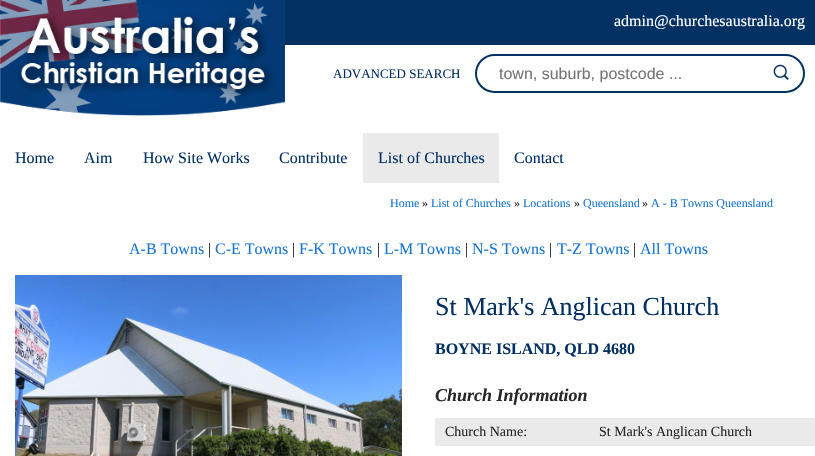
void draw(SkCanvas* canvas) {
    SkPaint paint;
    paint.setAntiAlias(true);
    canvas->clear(0xFFFFFFFF);
    paint.setColor(0xFF033163);
    canvas->drawRect(SkRect::MakeXYWH(0, 0, 815, 45), paint);
    canvas->drawImageRect(SkImages::DeferredFromEncodedData(SkData::MakeFromFileName("img1.png")), SkRect::MakeXYWH(0, 0, 285, 116), SkSamplingOptions());
    SkFont font1(fontMgr->matchFamilyStyle("Liberation Serif", SkFontStyle::Normal()), 16);
    font1.setSubpixel(true);
    paint.setColor(0xFFFFFFFF);
    canvas->drawString("admin@churchesaustralia.org", 614, 26, font1, paint);
    SkFont font2(fontMgr->matchFamilyStyle("Liberation Serif", SkFontStyle::Normal()), 13);
    font2.setSubpixel(true);
    paint.setColor(0xFF033062);
    canvas->drawString("ADVANCED SEARCH", 333, 78, font2, paint);
    paint.setStyle(SkPaint::kStroke_Style);
    paint.setStrokeWidth(2);
    paint.setColor(0xFF033163);
    canvas->drawRoundRect(SkRect::MakeXYWH(476, 55, 328, 37), 18.5f, 18.5f, paint);
    SkFont font3(fontMgr->matchFamilyStyle("Liberation Sans", SkFontStyle::Normal()), 16);
    font3.setSubpixel(true);
    paint.setStyle(SkPaint::kFill_Style);
    paint.setColor(0xFF757575);
    canvas->drawString("town, suburb, postcode ...", 499, 79, font3, paint);
    canvas->drawImageRect(SkImages::DeferredFromEncodedData(SkData::MakeFromFileName("img2.png")), SkRect::MakeXYWH(773, 59, 19, 21), SkSamplingOptions());
    paint.setColor(0xFF033062);
    canvas->drawString("Home", 15, 163, font1, paint);
    canvas->drawString("Aim", 84, 163, font1, paint);
    canvas->drawString("How Site Works", 143, 163, font1, paint);
    canvas->drawString("Contribute", 279, 163, font1, paint);
    paint.setColor(0xFFEAEAEA);
    canvas->drawRect(SkRect::MakeXYWH(363, 133, 136, 50), paint);
    paint.setColor(0xFF033062);
    canvas->drawString("List of Churches", 378, 163, font1, paint);
    canvas->drawString("Contact", 514, 163, font1, paint);
    SkFont font4(fontMgr->matchFamilyStyle("Liberation Serif", SkFontStyle::Normal()), 12);
    font4.setSubpixel(true);
    paint.setColor(0xFF1975D1);
    canvas->drawString("Home", 390, 207, font4, paint);
    paint.setColor(0xFF222222);
    canvas->drawString("»", 422, 207, font4, paint);
    paint.setColor(0xFF1975D1);
    canvas->drawString("List of Churches", 431, 207, font4, paint);
    paint.setColor(0xFF222222);
    canvas->drawString("»", 514, 207, font4, paint);
    paint.setColor(0xFF1975D1);
    canvas->drawString("Locations", 523, 207, font4, paint);
    paint.setColor(0xFF222222);
    canvas->drawString("»", 574, 207, font4, paint);
    paint.setColor(0xFF1975D1);
    canvas->drawString("Queensland", 583, 207, font4, paint);
    paint.setColor(0xFF222222);
    canvas->drawString("»", 642, 207, font4, paint);
    paint.setColor(0xFF1975D1);
    canvas->drawString("A - B Towns Queensland", 651, 207, font4, paint);
    canvas->drawString("A-B Towns", 129, 254, font1, paint);
    paint.setColor(0xFF222222);
    canvas->drawString("|", 208, 254, font1, paint);
    paint.setColor(0xFF1975D1);
    canvas->drawString("C-E Towns", 215, 254, font1, paint);
    paint.setColor(0xFF222222);
    canvas->drawString("|", 292, 254, font1, paint);
    paint.setColor(0xFF1975D1);
    canvas->drawString("F-K Towns", 299, 254, font1, paint);
    paint.setColor(0xFF222222);
    canvas->drawString("|", 377, 254, font1, paint);
    paint.setColor(0xFF1975D1);
    canvas->drawString("L-M Towns", 384, 254, font1, paint);
    paint.setColor(0xFF222222);
    canvas->drawString("|", 465, 254, font1, paint);
    paint.setColor(0xFF1975D1);
    canvas->drawString("N-S Towns", 472, 254, font1, paint);
    paint.setColor(0xFF222222);
    canvas->drawString("|", 549, 254, font1, paint);
    paint.setColor(0xFF1975D1);
    canvas->drawString("T-Z Towns", 557, 254, font1, paint);
    paint.setColor(0xFF222222);
    canvas->drawString("|", 633, 254, font1, paint);
    paint.setColor(0xFF1975D1);
    canvas->drawString("All Towns", 640, 254, font1, paint);
    canvas->drawImageRect(SkImages::DeferredFromEncodedData(SkData::MakeFromFileName("img3.png")), SkRect::MakeXYWH(15, 275, 387, 181), SkSamplingOptions());
    SkFont font5(fontMgr->matchFamilyStyle("Liberation Serif", SkFontStyle::Normal()), 26);
    font5.setSubpixel(true);
    paint.setColor(0xFF033062);
    canvas->drawString("St Mark's Anglican Church", 435, 315, font5, paint);
    SkFont font6(fontMgr->matchFamilyStyle("Liberation Serif", SkFontStyle::Bold()), 16);
    font6.setSubpixel(true);
    canvas->drawString("BOYNE ISLAND, QLD 4680", 435, 354, font6, paint);
    SkFont font7(fontMgr->matchFamilyStyle("Liberation Serif", SkFontStyle::BoldItalic()), 18);
    font7.setSubpixel(true);
    paint.setColor(0xFF282828);
    canvas->drawString("Church Information", 435, 401, font7, paint);
    paint.setColor(0xFFEAEAEA);
    canvas->drawRect(SkRect::MakeXYWH(435, 418, 380, 28), paint);
    SkFont font8(fontMgr->matchFamilyStyle("Liberation Serif", SkFontStyle::Normal()), 14);
    font8.setSubpixel(true);
    paint.setColor(0xFF282828);
    canvas->drawString("Church Name:", 445, 436, font8, paint);
    canvas->drawString("St Mark's Anglican Church", 599, 436, font8, paint);
}
